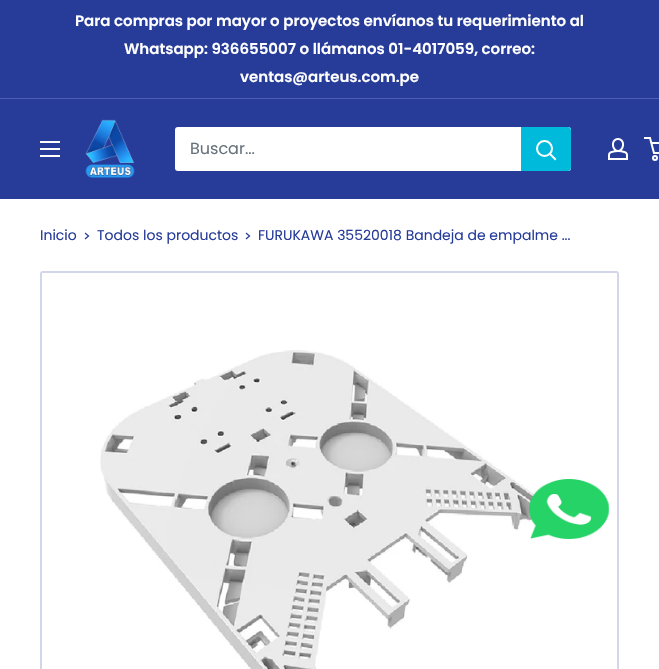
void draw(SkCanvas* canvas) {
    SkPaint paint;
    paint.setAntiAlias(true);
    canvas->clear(0xFFFFFFFF);
    paint.setColor(0xFF273C99);
    canvas->drawRect(SkRect::MakeXYWH(0, 0, 659, 98), paint);
    paint.setColor(0xFF4C5FB3);
    canvas->drawRect(SkRect::MakeXYWH(0, 98, 659, 1), paint);
    SkFont font1(fontMgr->matchFamilyStyle("Poppins", SkFontStyle(600, SkFontStyle::kNormal_Width, SkFontStyle::kUpright_Slant)), 15);
    font1.setSubpixel(true);
    paint.setColor(0xFFFFFFFF);
    canvas->drawString("Para compras por mayor o proyectos envíanos tu requerimiento al", 75, 26, font1, paint);
    canvas->drawString("Whatsapp: 936655007 o llámanos 01-4017059, correo:", 124, 54, font1, paint);
    canvas->drawString("ventas@arteus.com.pe", 240, 82, font1, paint);
    paint.setColor(0xFF273C99);
    canvas->drawRect(SkRect::MakeXYWH(0, 99, 659, 100), paint);
    canvas->drawImageRect(SkImages::DeferredFromEncodedData(SkData::MakeFromFileName("img1.png")), SkRect::MakeXYWH(40, 141, 20, 16), SkSamplingOptions());
    canvas->drawImageRect(SkImages::DeferredFromEncodedData(SkData::MakeFromFileName("img2.png")), SkRect::MakeXYWH(85, 119, 50, 59), SkSamplingOptions());
    paint.setColor(0xFFFFFFFF);
    canvas->drawRoundRect(SkRect::MakeXYWH(175, 127, 396, 44), 3, 3, paint);
    SkFont font2(fontMgr->matchFamilyStyle("Poppins", SkFontStyle::Normal()), 16);
    font2.setSubpixel(true);
    paint.setColor(0xFF677279);
    canvas->drawString("Buscar...", 190, 154, font2, paint);
    paint.setColor(0xFF00BADB);
    canvas->drawPath(SkPathBuilder().moveTo(521, 127).lineTo(568, 127).cubicTo(569.5f, 127, 571, 128.5f, 571, 130).lineTo(571, 168).cubicTo(571, 169.5f, 569.5f, 171, 568, 171).lineTo(521, 171).close().detach(), paint);
    paint.setStyle(SkPaint::kStroke_Style);
    paint.setStrokeWidth(2);
    paint.setStrokeCap(SkPaint::kSquare_Cap);
    paint.setColor(0xFFFFFFFF);
    canvas->drawPath(SkPathBuilder().moveTo(555, 159).lineTo(550, 154).detach(), paint);
    paint.setStrokeCap(SkPaint::kButt_Cap);
    canvas->drawCircle(544.5f, 148.5f, 7.5f, paint);
    canvas->drawImageRect(SkImages::DeferredFromEncodedData(SkData::MakeFromFileName("img3.png")), SkRect::MakeXYWH(608, 138, 20, 22), SkSamplingOptions());
    canvas->drawCircle(655, 158, 2, paint);
    canvas->drawPath(SkPathBuilder().moveTo(651.5f, 143).lineTo(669.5f, 143).lineTo(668, 153).lineTo(654, 153).lineTo(650, 138).lineTo(644, 138).detach(), paint);
    SkFont font3(fontMgr->matchFamilyStyle("Poppins", SkFontStyle::Normal()), 14);
    font3.setSubpixel(true);
    paint.setStyle(SkPaint::kFill_Style);
    paint.setColor(0xFF273C99);
    canvas->drawString("Inicio", 40, 240, font3, paint);
    paint.setStyle(SkPaint::kStroke_Style);
    paint.setStrokeWidth(1.3f);
    paint.setStrokeCap(SkPaint::kSquare_Cap);
    canvas->drawPath(SkPathBuilder().moveTo(85.5f, 233.5f).lineTo(88.5f, 236).lineTo(85.5f, 238.5f).detach(), paint);
    paint.setStyle(SkPaint::kFill_Style);
    canvas->drawString("Todos los productos", 97, 240, font3, paint);
    paint.setStyle(SkPaint::kStroke_Style);
    canvas->drawPath(SkPathBuilder().moveTo(246.5f, 233.5f).lineTo(249.5f, 236).lineTo(246.5f, 238.5f).detach(), paint);
    paint.setStyle(SkPaint::kFill_Style);
    canvas->drawString("FURUKAWA 35520018 Bandeja de empalme ...", 258, 240, font3, paint);
    paint.setStyle(SkPaint::kStroke_Style);
    paint.setStrokeWidth(2);
    paint.setStrokeCap(SkPaint::kButt_Cap);
    paint.setColor(0xFFD2D6EA);
    canvas->drawRoundRect(SkRect::MakeXYWH(41, 272, 577, 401), 2, 2, paint);
    paint.setStyle(SkPaint::kFill_Style);
    paint.setColor(0xFFFFFFFF);
    canvas->drawRect(SkRect::MakeXYWH(42, 273, 575, 1), paint);
    canvas->drawImageRect(SkImages::DeferredFromEncodedData(SkData::MakeFromFileName("img4.png")), SkRect::MakeXYWH(100, 350, 456, 319), SkSamplingOptions());
    canvas->drawImageRect(SkImages::DeferredFromEncodedData(SkData::MakeFromFileName("img5.png")), SkRect::MakeXYWH(529, 479, 80, 60), SkSamplingOptions());
}
